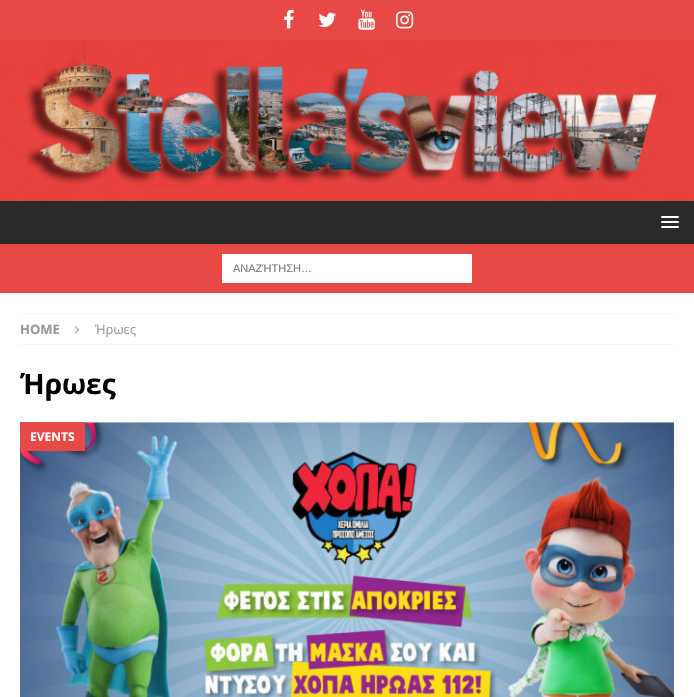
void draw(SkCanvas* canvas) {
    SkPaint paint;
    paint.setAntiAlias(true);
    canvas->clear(0xFFFFFFFF);
    paint.setColor(0xFFE64946);
    canvas->drawRect(SkRect::MakeXYWH(0, 0, 694, 40), paint);
    canvas->drawImageRect(SkImages::DeferredFromEncodedData(SkData::MakeFromFileName("img1.png")), SkRect::MakeXYWH(284, 9, 10, 20), SkSamplingOptions());
    canvas->drawImageRect(SkImages::DeferredFromEncodedData(SkData::MakeFromFileName("img2.png")), SkRect::MakeXYWH(318, 12, 18, 15), SkSamplingOptions());
    canvas->drawImageRect(SkImages::DeferredFromEncodedData(SkData::MakeFromFileName("img3.png")), SkRect::MakeXYWH(358, 9, 17, 21), SkSamplingOptions());
    canvas->drawImageRect(SkImages::DeferredFromEncodedData(SkData::MakeFromFileName("img4.png")), SkRect::MakeXYWH(396, 11, 18, 18), SkSamplingOptions());
    canvas->drawImageRect(SkImages::DeferredFromEncodedData(SkData::MakeFromFileName("img5.png")), SkRect::MakeXYWH(0, 40, 694, 161), SkSamplingOptions());
    paint.setColor(0xFF2A2A2A);
    canvas->drawRect(SkRect::MakeXYWH(0, 201, 694, 43), paint);
    paint.setColor(0xFFFFFFFF);
    canvas->drawRoundRect(SkRect::MakeXYWH(661, 216, 18, 2), 1, 1, paint);
    canvas->drawRoundRect(SkRect::MakeXYWH(661, 221, 18, 2), 1, 1, paint);
    canvas->drawRoundRect(SkRect::MakeXYWH(661, 226, 18, 2), 1, 1, paint);
    paint.setColor(0xFFE64946);
    canvas->drawRect(SkRect::MakeXYWH(0, 244, 694, 49), paint);
    paint.setColor(0xFFFFFFFF);
    canvas->drawRect(SkRect::MakeXYWH(222, 254, 250, 29), paint);
    SkFont font1(fontMgr->matchFamilyStyle("Liberation Sans", SkFontStyle::Normal()), 11);
    font1.setSubpixel(true);
    paint.setColor(0xFF757575);
    canvas->drawString("ΑΝΑΖΉΤΗΣΗ…", 233, 272, font1, paint);
    paint.setStyle(SkPaint::kStroke_Style);
    paint.setStrokeWidth(1);
    paint.setColor(0xFFEBEBEB);
    paint.setPathEffect(SkDashPathEffect::Make({{1, 1}}, 0));
    canvas->drawPath(SkPathBuilder().moveTo(20, 313.5f).lineTo(674, 313.5f).detach(), paint);
    paint.setPathEffect(nullptr);
    paint.setPathEffect(SkDashPathEffect::Make({{1, 1}}, 0));
    canvas->drawPath(SkPathBuilder().moveTo(20, 344.5f).lineTo(674, 344.5f).detach(), paint);
    paint.setPathEffect(nullptr);
    SkFont font2(fontMgr->matchFamilyStyle("Open Sans", SkFontStyle::Bold()), 13);
    font2.setSubpixel(true);
    paint.setStyle(SkPaint::kFill_Style);
    paint.setColor(0xFF979797);
    canvas->drawString("HOME", 20, 334, font2, paint);
    canvas->drawImageRect(SkImages::DeferredFromEncodedData(SkData::MakeFromFileName("img6.png")), SkRect::MakeXYWH(75, 326, 5, 8), SkSamplingOptions());
    SkFont font3(fontMgr->matchFamilyStyle("Open Sans", SkFontStyle::Normal()), 13);
    font3.setSubpixel(true);
    canvas->drawString("Ήρωες", 95, 334, font3, paint);
    SkFont font4(fontMgr->matchFamilyStyle("Open Sans", SkFontStyle::Bold()), 28);
    font4.setSubpixel(true);
    paint.setColor(0xFF000000);
    canvas->drawString("Ήρωες", 20, 394, font4, paint);
    canvas->drawImageRect(SkImages::DeferredFromEncodedData(SkData::MakeFromFileName("img7.png")), SkRect::MakeXYWH(20, 422, 654, 275), SkSamplingOptions());
    paint.setColor(0xFFE64946);
    canvas->drawRect(SkRect::MakeXYWH(20, 422, 65, 29), paint);
    SkFont font5(fontMgr->matchFamilyStyle("Open Sans", SkFontStyle::Bold()), 12);
    font5.setSubpixel(true);
    paint.setColor(0xFFFFFFFF);
    canvas->drawString("EVENTS", 30, 441, font5, paint);
}
